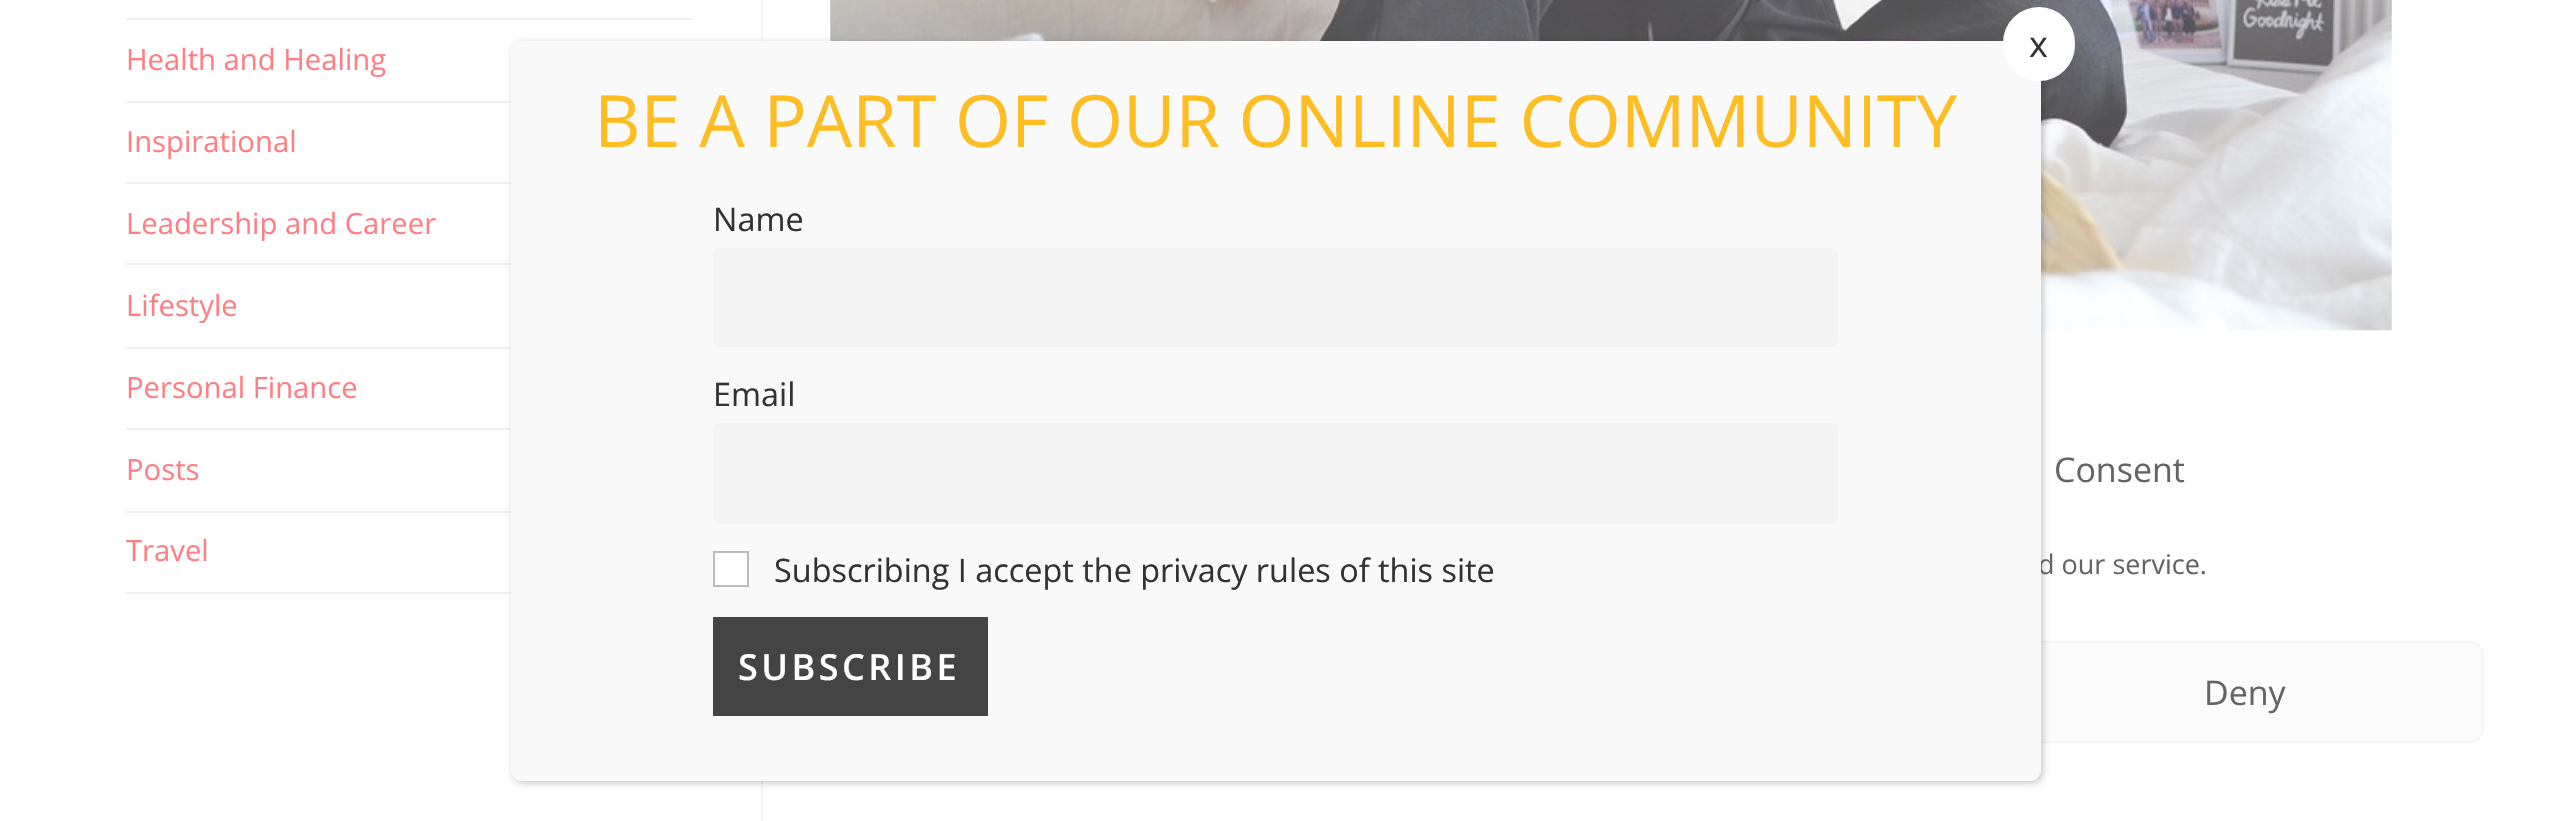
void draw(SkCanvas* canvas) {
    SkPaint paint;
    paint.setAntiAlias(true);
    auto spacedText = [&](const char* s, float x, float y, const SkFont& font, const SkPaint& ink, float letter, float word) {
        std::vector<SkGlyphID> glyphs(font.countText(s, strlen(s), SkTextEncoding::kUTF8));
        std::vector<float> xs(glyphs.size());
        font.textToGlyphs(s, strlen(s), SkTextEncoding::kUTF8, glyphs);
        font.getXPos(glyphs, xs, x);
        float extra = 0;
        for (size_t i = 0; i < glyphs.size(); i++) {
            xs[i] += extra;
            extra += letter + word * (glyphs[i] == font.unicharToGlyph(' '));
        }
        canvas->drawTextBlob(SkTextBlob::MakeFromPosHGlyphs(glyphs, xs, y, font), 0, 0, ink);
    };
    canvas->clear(0xFFFFFFFF);
    paint.setColor(0xFFF0F0F0);
    canvas->drawRect(SkRect::MakeXYWH(126, 18, 567, 2), paint);
    canvas->drawRect(SkRect::MakeXYWH(126, 101, 385, 2), paint);
    SkFont font1(fontMgr->matchFamilyStyle("Open Sans", SkFontStyle::Normal()), 29.25f);
    font1.setSubpixel(true);
    paint.setColor(0xFFFF7E84);
    canvas->drawString("Health and Healing", 126, 70, font1, paint);
    paint.setColor(0xFFF0F0F0);
    canvas->drawRect(SkRect::MakeXYWH(126, 182, 385, 2), paint);
    paint.setColor(0xFFFF7E84);
    canvas->drawString("Inspirational", 126, 152, font1, paint);
    paint.setColor(0xFFF0F0F0);
    canvas->drawRect(SkRect::MakeXYWH(126, 263, 385, 2), paint);
    paint.setColor(0xFFFF7E84);
    canvas->drawString("Leadership and Career", 126, 234, font1, paint);
    paint.setColor(0xFFF0F0F0);
    canvas->drawRect(SkRect::MakeXYWH(126, 347, 385, 2), paint);
    paint.setColor(0xFFFF7E84);
    canvas->drawString("Lifestyle", 126, 316, font1, paint);
    paint.setColor(0xFFF0F0F0);
    canvas->drawRect(SkRect::MakeXYWH(126, 428, 385, 2), paint);
    paint.setColor(0xFFFF7E84);
    canvas->drawString("Personal Finance", 126, 398, font1, paint);
    paint.setColor(0xFFF0F0F0);
    canvas->drawRect(SkRect::MakeXYWH(126, 511, 385, 2), paint);
    paint.setColor(0xFFFF7E84);
    canvas->drawString("Posts", 126, 480, font1, paint);
    paint.setColor(0xFFF0F0F0);
    canvas->drawRect(SkRect::MakeXYWH(126, 592, 385, 2), paint);
    paint.setColor(0xFFFF7E84);
    canvas->drawString("Travel", 126, 561, font1, paint);
    paint.setColor(0xFFF5F5F5);
    canvas->drawRect(SkRect::MakeXYWH(761, 0, 2, 821), paint);
    canvas->drawImageRect(SkImages::DeferredFromEncodedData(SkData::MakeFromFileName("img1.png")), SkRect::MakeXYWH(830, 0, 1562, 331), SkSamplingOptions());
    paint.setColor(0xFFFBFBFB);
    canvas->drawRoundRect(SkRect::MakeXYWH(2006, 642, 477, 100), 13, 13, paint);
    paint.setStyle(SkPaint::kStroke_Style);
    paint.setStrokeWidth(2);
    paint.setColor(0xFFF6F6F6);
    canvas->drawRoundRect(SkRect::MakeXYWH(2006, 642, 477, 100), 13, 13, paint);
    paint.setStyle(SkPaint::kFill_Style);
    paint.setColor(0x3B020202);
    paint.setMaskFilter(SkMaskFilter::MakeBlur(kNormal_SkBlurStyle, 3.5f));
    canvas->drawRoundRect(SkRect::MakeXYWH(513, 43, 1530, 740), 11, 11, paint);
    paint.setMaskFilter(nullptr);
    SkFont font2(fontMgr->matchFamilyStyle("Open Sans", SkFontStyle::Normal()), 27);
    font2.setSubpixel(true);
    paint.setColor(0xFF646464);
    canvas->drawString("d our service.", 2038, 574, font2, paint);
    paint.setColor(0xFFF9F9F9);
    canvas->drawRoundRect(SkRect::MakeXYWH(511, 41, 1530, 740), 11, 11, paint);
    paint.setColor(0xFFFFFFFF);
    canvas->drawRoundRect(SkRect::MakeXYWH(2005.5f, 9.5f, 67, 69), 33.5f, 33.5f, paint);
    paint.setStyle(SkPaint::kStroke_Style);
    paint.setStrokeWidth(5);
    canvas->drawRoundRect(SkRect::MakeXYWH(2005.5f, 9.5f, 67, 69), 33.5f, 33.5f, paint);
    SkFont font3(fontMgr->matchFamilyStyle("Open Sans", SkFontStyle::Normal()), 36);
    font3.setSubpixel(true);
    paint.setStyle(SkPaint::kFill_Style);
    paint.setColor(0xFF333333);
    canvas->drawString("x", 2029, 57, font3, paint);
    SkFont font4(fontMgr->matchFamilyStyle("Open Sans", SkFontStyle::Normal()), 72);
    font4.setSubpixel(true);
    paint.setColor(0xFFFFBD24);
    canvas->drawString("BE A PART OF OUR ONLINE COMMUNITY", 594, 147, font4, paint);
    SkFont font5(fontMgr->matchFamilyStyle("Open Sans", SkFontStyle::Normal()), 32.4f);
    font5.setSubpixel(true);
    paint.setColor(0xFF333333);
    canvas->drawString("Name", 713, 231, font5, paint);
    paint.setColor(0xFFF4F4F4);
    canvas->drawRoundRect(SkRect::MakeXYWH(713, 248, 1125, 99), 7, 7, paint);
    paint.setColor(0xFF333333);
    canvas->drawString("Email", 713, 406, font5, paint);
    paint.setColor(0xFFF4F4F4);
    canvas->drawRoundRect(SkRect::MakeXYWH(713, 423, 1125, 101), 7, 7, paint);
    paint.setColor(0xFFFFFFFF);
    canvas->drawRect(SkRect::MakeXYWH(714, 552, 34, 34), paint);
    paint.setStyle(SkPaint::kStroke_Style);
    paint.setStrokeWidth(2);
    paint.setColor(0xFFBBBBBB);
    canvas->drawRect(SkRect::MakeXYWH(714, 552, 34, 34), paint);
    paint.setStyle(SkPaint::kFill_Style);
    paint.setColor(0xFF333333);
    canvas->drawString("Subscribing I accept the privacy rules of this site", 774, 582, font5, paint);
    paint.setColor(0xFF444444);
    canvas->drawRect(SkRect::MakeXYWH(713, 617, 275, 99), paint);
    SkFont font6(fontMgr->matchFamilyStyle("Open Sans", SkFontStyle(600, SkFontStyle::kNormal_Width, SkFontStyle::kUpright_Slant)), 36);
    font6.setSubpixel(true);
    paint.setColor(0xFFFFFFFF);
    spacedText("SUBSCRIBE", 738, 680, font6, paint, 3.5f, 0);
    SkFont font7(fontMgr->matchFamilyStyle("Open Sans", SkFontStyle::Normal()), 34);
    font7.setSubpixel(true);
    paint.setColor(0xFF646464);
    canvas->drawString("Consent", 2054, 482, font7, paint);
    canvas->drawString("Deny", 2204, 705, font7, paint);
}
